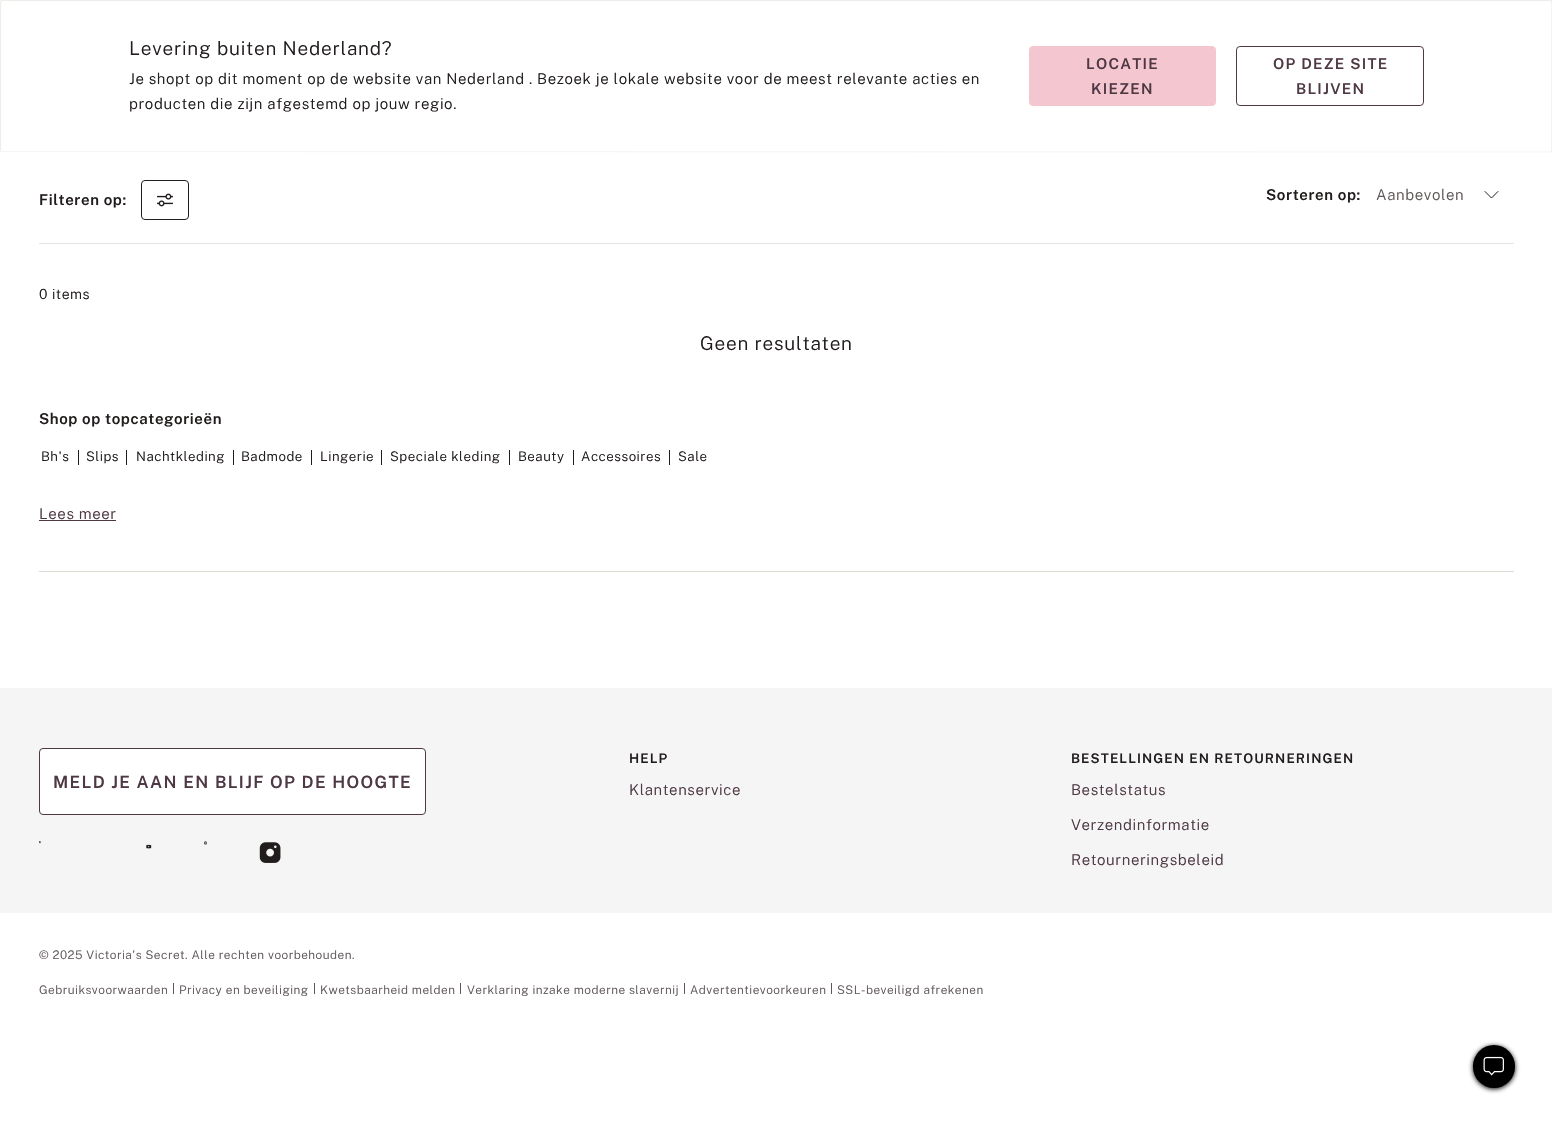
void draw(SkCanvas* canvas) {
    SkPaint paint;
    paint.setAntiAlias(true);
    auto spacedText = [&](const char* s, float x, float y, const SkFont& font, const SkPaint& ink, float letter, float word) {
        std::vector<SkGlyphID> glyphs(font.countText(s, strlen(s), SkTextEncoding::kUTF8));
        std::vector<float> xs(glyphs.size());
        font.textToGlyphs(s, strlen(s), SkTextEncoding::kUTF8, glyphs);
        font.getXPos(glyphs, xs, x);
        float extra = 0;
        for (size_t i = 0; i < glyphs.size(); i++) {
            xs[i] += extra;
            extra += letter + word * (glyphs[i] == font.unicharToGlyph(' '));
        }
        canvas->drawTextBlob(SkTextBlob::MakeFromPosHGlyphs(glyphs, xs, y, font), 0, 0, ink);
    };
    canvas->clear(0xFFFFFFFF);
    paint.setStyle(SkPaint::kStroke_Style);
    paint.setStrokeWidth(1.2f);
    paint.setColor(0xFFF5F5F6);
    canvas->drawPath(SkPathBuilder().moveTo(1551.5f, 151.5f).lineTo(1550, 152).lineTo(2, 151.5f).lineTo(1, 151.5f).detach(), paint);
    paint.setColor(0xFFEFECEA);
    canvas->drawPath(SkPathBuilder().moveTo(1, 151.5f).lineTo(0.5f, 150).lineTo(0.5f, 2.5f).lineTo(1, 1).lineTo(2.5f, 0.5f).lineTo(1550, 0.5f).lineTo(1551.5f, 1).lineTo(1552, 2.5f).lineTo(1552, 150).lineTo(1551.5f, 151.5f).detach(), paint);
    SkFont font1(fontMgr->matchFamilyStyle("Public Sans", SkFontStyle(300, SkFontStyle::kNormal_Width, SkFontStyle::kUpright_Slant)), 19);
    font1.setSubpixel(true);
    paint.setStyle(SkPaint::kFill_Style);
    paint.setColor(0xFF221D1D);
    spacedText("Levering buiten Nederland?", 129, 55, font1, paint, 0.75f, 0);
    SkFont font2(fontMgr->matchFamilyStyle("Public Sans", SkFontStyle(300, SkFontStyle::kNormal_Width, SkFontStyle::kUpright_Slant)), 15);
    font2.setSubpixel(true);
    spacedText("Je shopt op dit moment op de website van Nederland . Bezoek je lokale website voor de meest relevante acties en", 129, 84, font2, paint, 0.6f, 0);
    spacedText("producten die zijn afgestemd op jouw regio.", 129, 109, font2, paint, 0.6f, 0);
    paint.setColor(0xFFF4C6CF);
    canvas->drawRoundRect(SkRect::MakeXYWH(1029.5f, 46.5f, 186, 59), 3.5f, 3.5f, paint);
    paint.setStyle(SkPaint::kStroke_Style);
    paint.setStrokeWidth(1);
    canvas->drawRoundRect(SkRect::MakeXYWH(1029.5f, 46.5f, 186, 59), 3.5f, 3.5f, paint);
    SkFont font3(fontMgr->matchFamilyStyle("Public Sans", SkFontStyle(600, SkFontStyle::kNormal_Width, SkFontStyle::kUpright_Slant)), 15);
    font3.setSubpixel(true);
    paint.setStyle(SkPaint::kFill_Style);
    paint.setColor(0xFF4E3844);
    spacedText("LOCATIE", 1086, 69, font3, paint, 1.25f, 0);
    spacedText("KIEZEN", 1091, 94, font3, paint, 1.25f, 0);
    paint.setStyle(SkPaint::kStroke_Style);
    canvas->drawRoundRect(SkRect::MakeXYWH(1236.5f, 46.5f, 187, 59), 3.5f, 3.5f, paint);
    paint.setStyle(SkPaint::kFill_Style);
    spacedText("OP DEZE SITE", 1273, 69, font3, paint, 1.25f, 0);
    spacedText("BLIJVEN", 1296, 94, font3, paint, 1.25f, 0);
    paint.setColor(0xFFE8E3DF);
    canvas->drawRect(SkRect::MakeXYWH(39, 243, 1475, 1), paint);
    paint.setColor(0xFF221D1D);
    spacedText("Filteren op:", 39, 205, font3, paint, 0.6f, 0);
    paint.setStyle(SkPaint::kStroke_Style);
    canvas->drawRoundRect(SkRect::MakeXYWH(141.5f, 180.5f, 47, 39), 3.5f, 3.5f, paint);
    canvas->drawImageRect(SkImages::DeferredFromEncodedData(SkData::MakeFromFileName("img1.png")), SkRect::MakeXYWH(157, 193, 16, 14), SkSamplingOptions());
    paint.setStyle(SkPaint::kFill_Style);
    spacedText("Sorteren op:", 1266, 200, font3, paint, 0.6f, 0);
    paint.setColor(0xFF605858);
    spacedText("Aanbevolen", 1376, 200, font2, paint, 0.6f, 0);
    paint.setStyle(SkPaint::kStroke_Style);
    paint.setStrokeCap(SkPaint::kRound_Cap);
    paint.setColor(0xFF221D1D);
    canvas->drawPath(SkPathBuilder().moveTo(1498, 191.5f).lineTo(1491.5f, 198).lineTo(1485, 191.5f).detach(), paint);
    SkFont font4(fontMgr->matchFamilyStyle("Public Sans", SkFontStyle(300, SkFontStyle::kNormal_Width, SkFontStyle::kUpright_Slant)), 14);
    font4.setSubpixel(true);
    paint.setStyle(SkPaint::kFill_Style);
    spacedText("0 items", 39, 299, font4, paint, 0.5f, 0);
    spacedText("Geen resultaten", 700, 350, font1, paint, 0.75f, 0);
    spacedText("Shop op topcategorieën", 39, 424, font3, paint, 0.6f, 0);
    SkFont font5(fontMgr->matchFamilyStyle("Public Sans", SkFontStyle(300, SkFontStyle::kNormal_Width, SkFontStyle::kUpright_Slant)), 13.3f);
    font5.setSubpixel(true);
    spacedText("Bh's", 41, 461, font5, paint, 0.5f, 0);
    canvas->drawRect(SkRect::MakeXYWH(78, 450, 1, 15), paint);
    spacedText("Slips", 86, 461, font5, paint, 0.5f, 0);
    canvas->drawRect(SkRect::MakeXYWH(126, 450, 1, 15), paint);
    spacedText("Nachtkleding", 136, 461, font5, paint, 0.5f, 0);
    canvas->drawRect(SkRect::MakeXYWH(233, 450, 1, 15), paint);
    spacedText("Badmode", 241, 461, font5, paint, 0.5f, 0);
    canvas->drawRect(SkRect::MakeXYWH(311, 450, 1, 15), paint);
    spacedText("Lingerie", 320, 461, font5, paint, 0.5f, 0);
    canvas->drawRect(SkRect::MakeXYWH(381, 450, 1, 15), paint);
    spacedText("Speciale kleding", 390, 461, font5, paint, 0.5f, 0);
    canvas->drawRect(SkRect::MakeXYWH(509, 450, 1, 15), paint);
    spacedText("Beauty", 518, 461, font5, paint, 0.5f, 0);
    canvas->drawRect(SkRect::MakeXYWH(573, 450, 1, 15), paint);
    spacedText("Accessoires", 581, 461, font5, paint, 0.5f, 0);
    canvas->drawRect(SkRect::MakeXYWH(669, 450, 1, 15), paint);
    spacedText("Sale", 678, 461, font5, paint, 0.5f, 0);
    paint.setColor(0xFF4E3844);
    spacedText("Lees meer", 39, 519, font2, paint, 0.6f, 0);
    canvas->drawRect(SkRect::MakeXYWH(39, 520, 77, 1), paint);
    paint.setColor(0xFFE0DAD5);
    canvas->drawRect(SkRect::MakeXYWH(39, 571, 1475, 1), paint);
    paint.setColor(0xFF000000);
    paint.setMaskFilter(SkMaskFilter::MakeBlur(kNormal_SkBlurStyle, 2.5f));
    canvas->drawRoundRect(SkRect::MakeXYWH(1473, 1046, 42, 43), 21, 21, paint);
    paint.setMaskFilter(nullptr);
    canvas->drawRoundRect(SkRect::MakeXYWH(1473, 1045, 42, 43), 21, 21, paint);
    canvas->drawImageRect(SkImages::DeferredFromEncodedData(SkData::MakeFromFileName("img2.png")), SkRect::MakeXYWH(1483, 1056, 21, 20), SkSamplingOptions());
    paint.setColor(0xFFF5F5F6);
    canvas->drawRect(SkRect::MakeXYWH(0, 688, 1552, 225), paint);
    paint.setColor(0xFFFFFFFF);
    canvas->drawRoundRect(SkRect::MakeXYWH(39.5f, 748.5f, 386, 66), 3.5f, 3.5f, paint);
    paint.setStyle(SkPaint::kStroke_Style);
    paint.setStrokeCap(SkPaint::kButt_Cap);
    paint.setColor(0xFF4E3844);
    canvas->drawRoundRect(SkRect::MakeXYWH(39.5f, 748.5f, 386, 66), 3.5f, 3.5f, paint);
    SkFont font6(fontMgr->matchFamilyStyle("Public Sans", SkFontStyle(600, SkFontStyle::kNormal_Width, SkFontStyle::kUpright_Slant)), 16.9f);
    font6.setSubpixel(true);
    paint.setStyle(SkPaint::kFill_Style);
    spacedText("MELD JE AAN EN BLIJF OP DE HOOGTE", 53, 788, font6, paint, 1.35f, 0);
    canvas->drawImageRect(SkImages::DeferredFromEncodedData(SkData::MakeFromFileName("img3.png")), SkRect::MakeXYWH(39, 841, 2, 3), SkSamplingOptions());
    canvas->drawImageRect(SkImages::DeferredFromEncodedData(SkData::MakeFromFileName("img4.png")), SkRect::MakeXYWH(146, 844, 6, 5), SkSamplingOptions());
    canvas->drawImageRect(SkImages::DeferredFromEncodedData(SkData::MakeFromFileName("img5.png")), SkRect::MakeXYWH(204, 841, 3, 4), SkSamplingOptions());
    canvas->drawImageRect(SkImages::DeferredFromEncodedData(SkData::MakeFromFileName("img6.png")), SkRect::MakeXYWH(259, 842, 22, 21), SkSamplingOptions());
    SkFont font7(fontMgr->matchFamilyStyle("Public Sans", SkFontStyle(600, SkFontStyle::kNormal_Width, SkFontStyle::kUpright_Slant)), 13.3f);
    font7.setSubpixel(true);
    paint.setColor(0xFF221D1D);
    spacedText("HELP", 629, 763, font7, paint, 1.1f, 0);
    paint.setColor(0xFF4E3844);
    spacedText("Klantenservice", 629, 795, font2, paint, 0.6f, 0);
    paint.setColor(0xFF221D1D);
    spacedText("BESTELLINGEN EN RETOURNERINGEN", 1071, 763, font7, paint, 1.1f, 0);
    paint.setColor(0xFF4E3844);
    spacedText("Bestelstatus", 1071, 795, font2, paint, 0.6f, 0);
    spacedText("Verzendinformatie", 1071, 830, font2, paint, 0.6f, 0);
    spacedText("Retourneringsbeleid", 1071, 865, font2, paint, 0.6f, 0);
    SkFont font8(fontMgr->matchFamilyStyle("Public Sans", SkFontStyle(300, SkFontStyle::kNormal_Width, SkFontStyle::kUpright_Slant)), 11.85f);
    font8.setSubpixel(true);
    paint.setColor(0xFF605858);
    spacedText("© 2025 Victoria's Secret. Alle rechten voorbehouden.", 39, 959, font8, paint, 0.47f, 0);
    spacedText("Gebruiksvoorwaarden", 39, 994, font8, paint, 0.47f, 0);
    canvas->drawRect(SkRect::MakeXYWH(173, 983, 1, 11), paint);
    spacedText("Privacy en beveiliging", 179, 994, font8, paint, 0.47f, 0);
    canvas->drawRect(SkRect::MakeXYWH(314, 983, 1, 11), paint);
    spacedText("Kwetsbaarheid melden", 320, 994, font8, paint, 0.47f, 0);
    canvas->drawRect(SkRect::MakeXYWH(460, 983, 1, 11), paint);
    spacedText("Verklaring inzake moderne slavernij", 467, 994, font8, paint, 0.47f, 0);
    canvas->drawRect(SkRect::MakeXYWH(684, 983, 1, 11), paint);
    spacedText("Advertentievoorkeuren", 690, 994, font8, paint, 0.47f, 0);
    canvas->drawRect(SkRect::MakeXYWH(831, 983, 1, 11), paint);
    spacedText("SSL-beveiligd afrekenen", 837, 994, font8, paint, 0.47f, 0);
}
